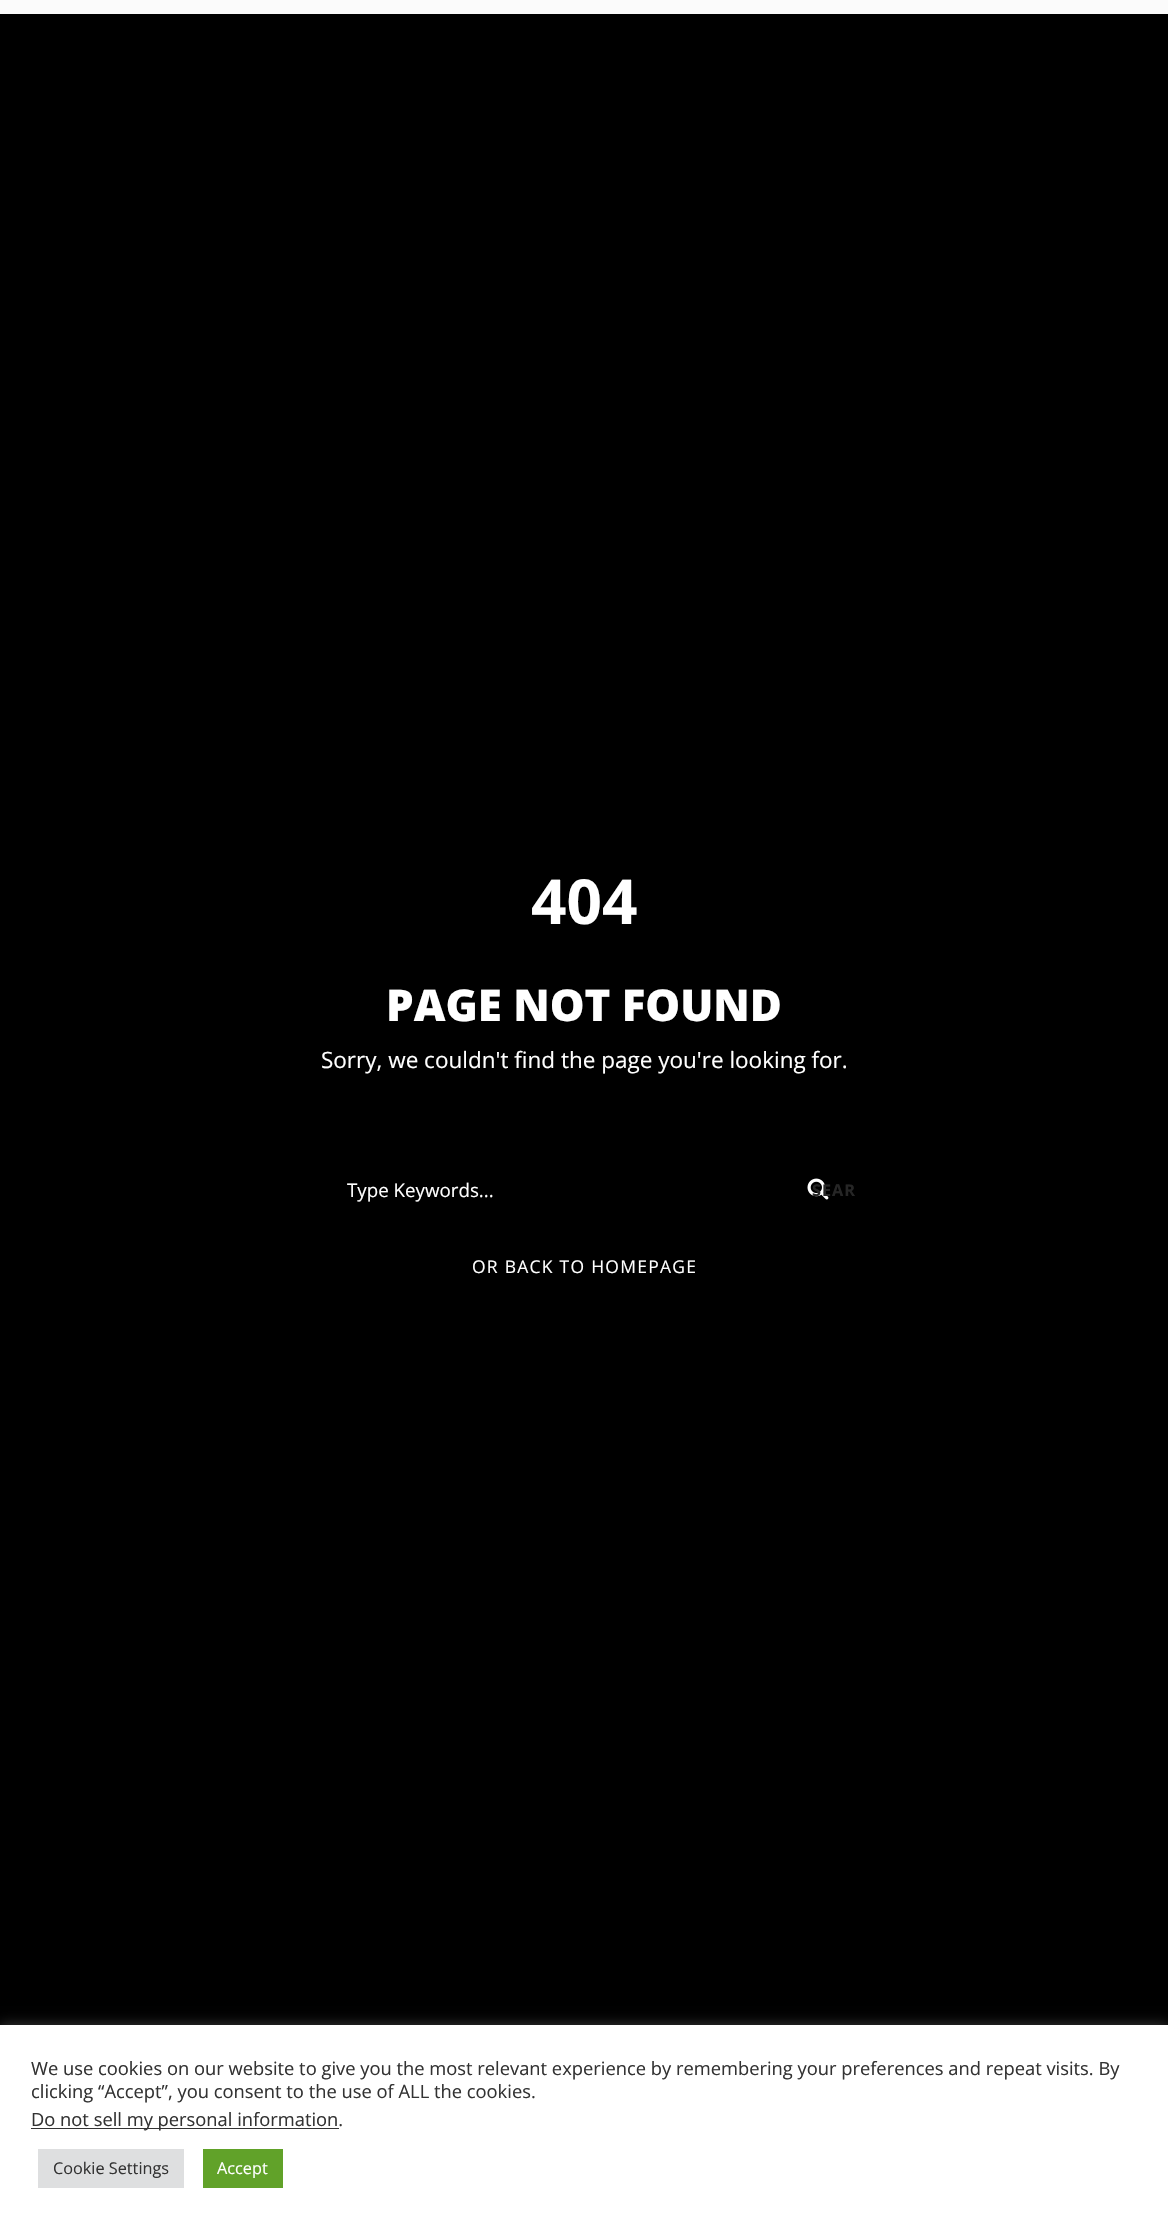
void draw(SkCanvas* canvas) {
    SkPaint paint;
    paint.setAntiAlias(true);
    auto spacedText = [&](const char* s, float x, float y, const SkFont& font, const SkPaint& ink, float letter, float word) {
        std::vector<SkGlyphID> glyphs(font.countText(s, strlen(s), SkTextEncoding::kUTF8));
        std::vector<float> xs(glyphs.size());
        font.textToGlyphs(s, strlen(s), SkTextEncoding::kUTF8, glyphs);
        font.getXPos(glyphs, xs, x);
        float extra = 0;
        for (size_t i = 0; i < glyphs.size(); i++) {
            xs[i] += extra;
            extra += letter + word * (glyphs[i] == font.unicharToGlyph(' '));
        }
        canvas->drawTextBlob(SkTextBlob::MakeFromPosHGlyphs(glyphs, xs, y, font), 0, 0, ink);
    };
    canvas->clear(0xFF000000);
    paint.setColor(0xFFFBFBFB);
    canvas->drawRect(SkRect::MakeXYWH(0, 0, 1168, 14), paint);
    SkFont font1(fontMgr->matchFamilyStyle("Open Sans", SkFontStyle::Bold()), 62);
    font1.setSubpixel(true);
    paint.setColor(0xFFFFFFFF);
    canvas->drawString("404", 531, 924, font1, paint);
    SkFont font2(fontMgr->matchFamilyStyle("Open Sans", SkFontStyle(800, SkFontStyle::kNormal_Width, SkFontStyle::kUpright_Slant)), 43.75f);
    font2.setSubpixel(true);
    canvas->drawString("PAGE NOT FOUND", 386, 1021, font2, paint);
    SkFont font3(fontMgr->matchFamilyStyle("Open Sans", SkFontStyle::Normal()), 22.5f);
    font3.setSubpixel(true);
    canvas->drawString("Sorry, we couldn't find the page you're looking for.", 321, 1068, font3, paint);
    SkFont font4(fontMgr->matchFamilyStyle("Open Sans", SkFontStyle::Normal()), 18.75f);
    font4.setSubpixel(true);
    canvas->drawString("Type Keywords...", 347, 1197, font4, paint);
    canvas->drawImageRect(SkImages::DeferredFromEncodedData(SkData::MakeFromFileName("img1.png")), SkRect::MakeXYWH(807, 1178, 22, 22), SkSamplingOptions());
    SkFont font5(fontMgr->matchFamilyStyle("Open Sans", SkFontStyle::Bold()), 16.25f);
    font5.setSubpixel(true);
    paint.setColor(0xFF262626);
    spacedText("SEAR", 812, 1196, font5, paint, 1, 0);
    SkFont font6(fontMgr->matchFamilyStyle("Open Sans", SkFontStyle::Normal()), 17.5f);
    font6.setSubpixel(true);
    paint.setColor(0xFFFFFFFF);
    spacedText("OR BACK TO HOMEPAGE", 472, 1273, font6, paint, 1.25f, 0);
    paint.setColor(0x4DACABAB);
    paint.setMaskFilter(SkMaskFilter::MakeBlur(kNormal_SkBlurStyle, 6));
    canvas->drawRect(SkRect::MakeXYWH(0, 2024, 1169, 200), paint);
    paint.setMaskFilter(nullptr);
    paint.setColor(0xFFFFFFFF);
    canvas->drawRect(SkRect::MakeXYWH(0, 2025, 1168, 200), paint);
    SkFont font7(fontMgr->matchFamilyStyle("Open Sans", SkFontStyle::Normal()), 18.33f);
    font7.setSubpixel(true);
    paint.setColor(0xFF333333);
    canvas->drawString("We use cookies on our website to give you the most relevant experience by remembering your preferences and repeat visits. By", 31, 2075, font7, paint);
    canvas->drawString("clicking “Accept”, you consent to the use of ALL the cookies.", 31, 2098, font7, paint);
    canvas->drawRect(SkRect::MakeXYWH(31, 2128, 308, 1), paint);
    canvas->drawString("Do not sell my personal information.", 31, 2126, font7, paint);
    paint.setColor(0xFFDEDFE0);
    canvas->drawRect(SkRect::MakeXYWH(38, 2149, 146, 39), paint);
    SkFont font8(fontMgr->matchFamilyStyle("Open Sans", SkFontStyle::Normal()), 16.25f);
    font8.setSubpixel(true);
    paint.setColor(0xFF333333);
    canvas->drawString("Cookie Settings", 53, 2174, font8, paint);
    paint.setColor(0xFF61A229);
    canvas->drawRect(SkRect::MakeXYWH(203, 2149, 80, 39), paint);
    paint.setColor(0xFFFFFFFF);
    canvas->drawString("Accept", 217, 2174, font8, paint);
}
